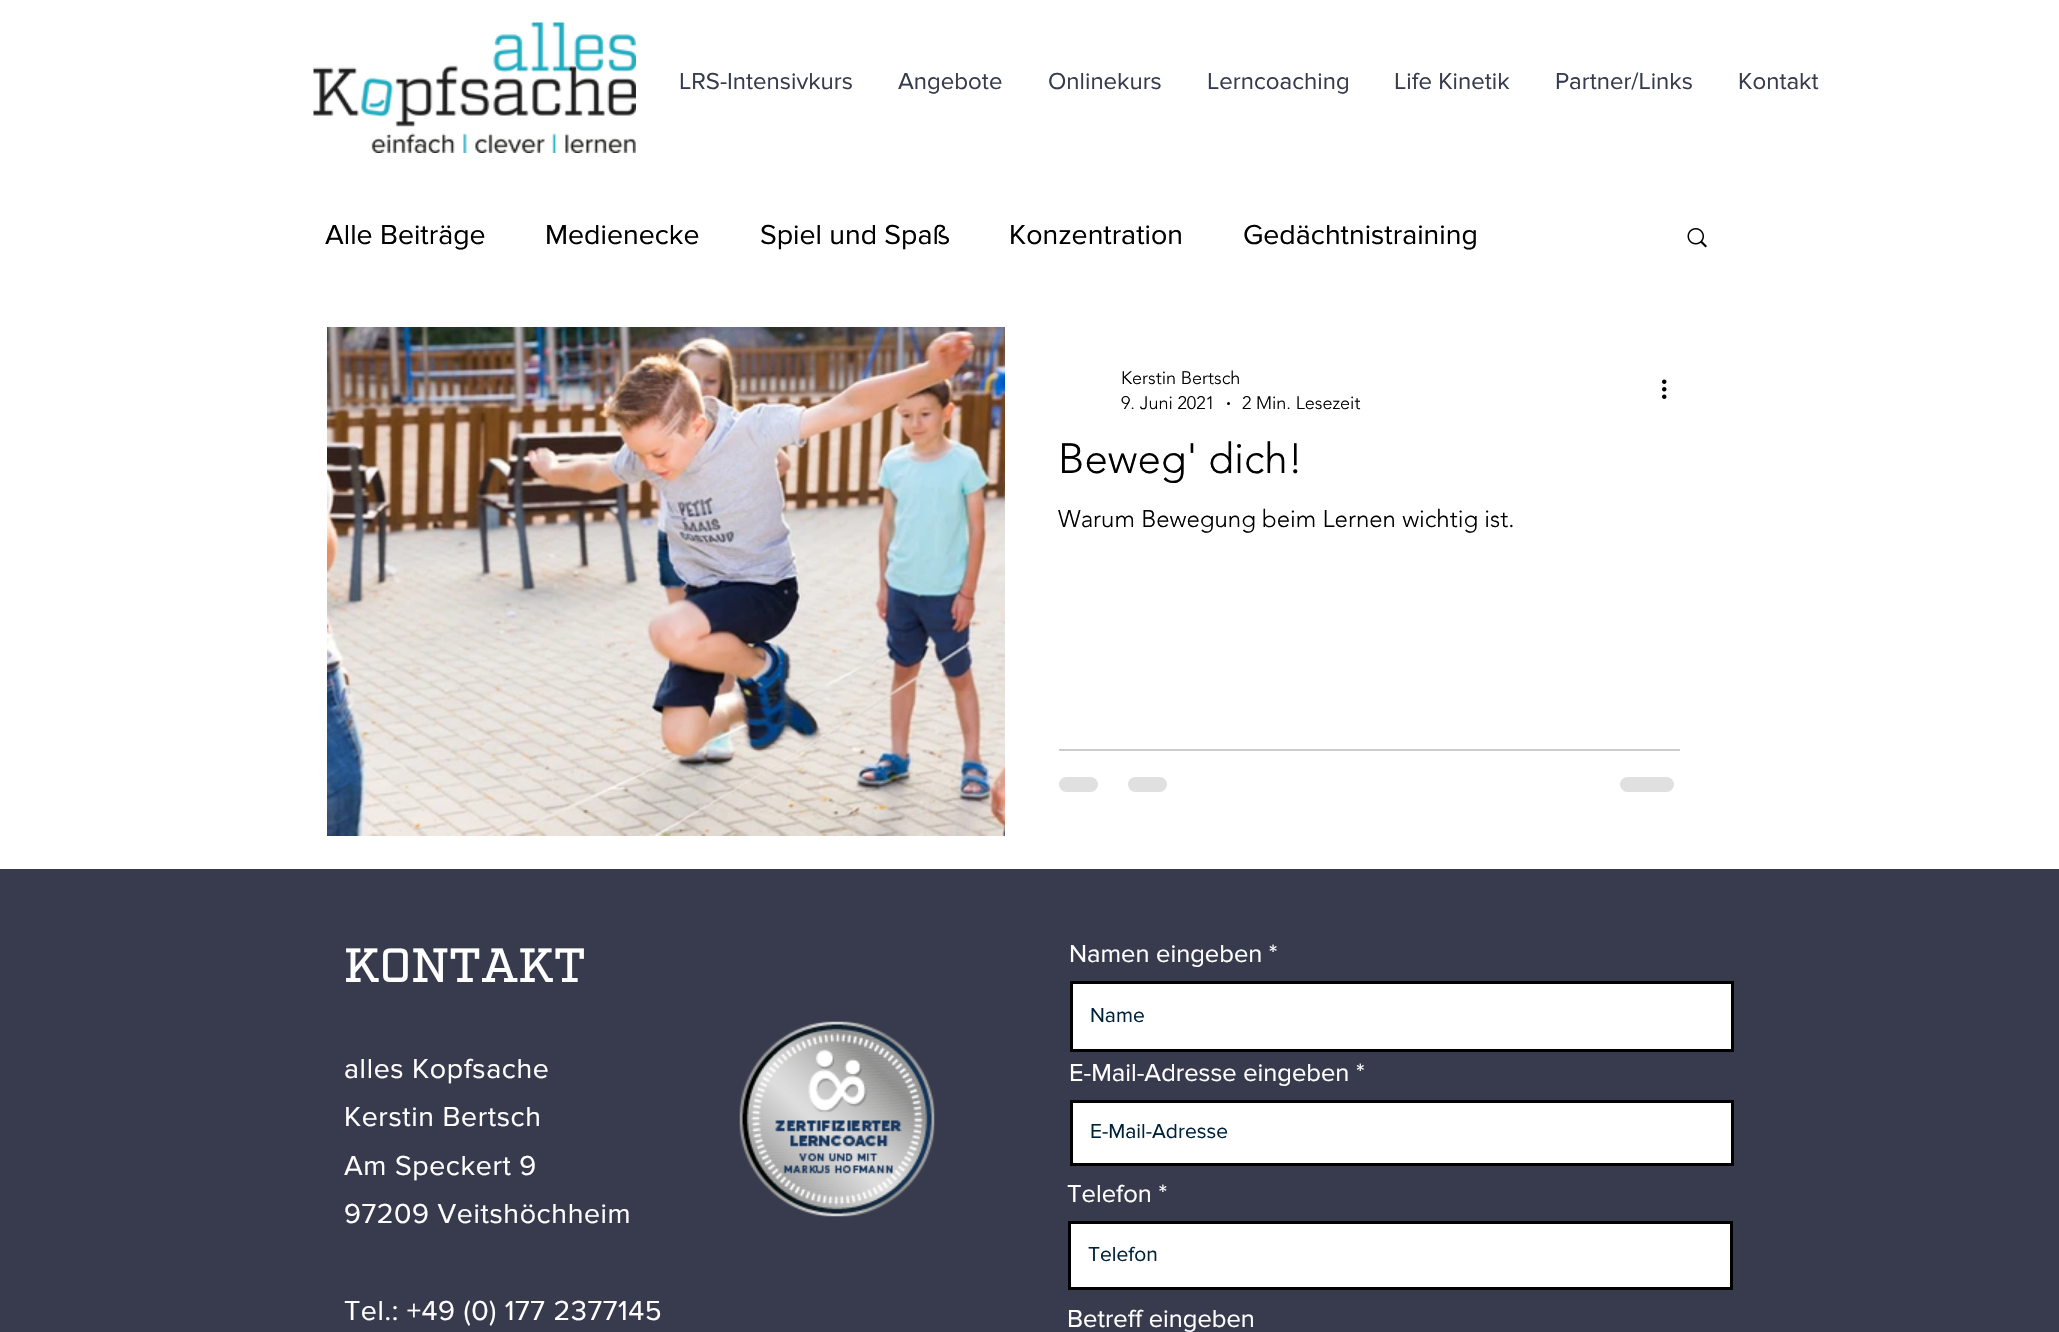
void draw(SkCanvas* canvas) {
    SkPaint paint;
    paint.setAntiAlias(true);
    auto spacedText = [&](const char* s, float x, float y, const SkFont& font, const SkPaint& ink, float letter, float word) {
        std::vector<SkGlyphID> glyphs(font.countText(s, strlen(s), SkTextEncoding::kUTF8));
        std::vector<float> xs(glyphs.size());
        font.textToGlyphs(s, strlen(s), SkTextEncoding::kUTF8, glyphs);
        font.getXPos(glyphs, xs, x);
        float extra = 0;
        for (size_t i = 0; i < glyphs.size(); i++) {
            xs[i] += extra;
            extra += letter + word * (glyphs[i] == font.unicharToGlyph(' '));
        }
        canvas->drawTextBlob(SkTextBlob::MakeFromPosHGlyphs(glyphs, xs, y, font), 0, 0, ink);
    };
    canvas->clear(0xFFFFFFFF);
    canvas->drawImageRect(SkImages::DeferredFromEncodedData(SkData::MakeFromFileName("img1.png")), SkRect::MakeXYWH(313, 22, 323, 131), SkSamplingOptions());
    SkFont font1(fontMgr->matchFamilyStyle("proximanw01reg", SkFontStyle::Normal()), 24);
    font1.setSubpixel(true);
    paint.setColor(0xFF373B4D);
    canvas->drawString("LRS-Intensivkurs", 679, 89, font1, paint);
    canvas->drawString("Angebote", 898, 89, font1, paint);
    canvas->drawString("Onlinekurs", 1048, 89, font1, paint);
    canvas->drawString("Lerncoaching", 1207, 89, font1, paint);
    canvas->drawString("Life Kinetik", 1394, 89, font1, paint);
    canvas->drawString("Partner/Links", 1555, 89, font1, paint);
    canvas->drawString("Kontakt", 1738, 89, font1, paint);
    SkFont font2(fontMgr->matchFamilyStyle("proximanw01reg", SkFontStyle::Normal()), 28.5f);
    font2.setSubpixel(true);
    paint.setColor(0xFF000000);
    canvas->drawString("Alle Beiträge", 325, 244, font2, paint);
    canvas->drawString("Medienecke", 545, 244, font2, paint);
    canvas->drawString("Spiel und Spaß", 760, 244, font2, paint);
    canvas->drawString("Konzentration", 1009, 244, font2, paint);
    canvas->drawString("Gedächtnistraining", 1243, 244, font2, paint);
    canvas->drawImageRect(SkImages::DeferredFromEncodedData(SkData::MakeFromFileName("img2.png")), SkRect::MakeXYWH(1687, 228, 20, 20), SkSamplingOptions());
    canvas->drawImageRect(SkImages::DeferredFromEncodedData(SkData::MakeFromFileName("img3.png")), SkRect::MakeXYWH(327, 327, 678, 509), SkSamplingOptions());
    SkFont font3(fontMgr->matchFamilyStyle("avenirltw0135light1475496", SkFontStyle(300, SkFontStyle::kNormal_Width, SkFontStyle::kUpright_Slant)), 18);
    font3.setSubpixel(true);
    canvas->drawString("Kerstin Bertsch", 1121, 384, font3, paint);
    canvas->drawString("9. Juni 2021", 1121, 409, font3, paint);
    canvas->drawCircle(1228.5f, 403.5f, 1.5f, paint);
    canvas->drawString("2 Min. Lesezeit", 1242, 409, font3, paint);
    canvas->drawImageRect(SkImages::DeferredFromEncodedData(SkData::MakeFromFileName("img4.png")), SkRect::MakeXYWH(1662, 379, 5, 20), SkSamplingOptions());
    SkFont font4(fontMgr->matchFamilyStyle("avenirltw0135light1475496", SkFontStyle(300, SkFontStyle::kNormal_Width, SkFontStyle::kUpright_Slant)), 42);
    font4.setSubpixel(true);
    canvas->drawString("Beweg' dich!", 1058, 473, font4, paint);
    SkFont font5(fontMgr->matchFamilyStyle("avenirltw0135light1475496", SkFontStyle(300, SkFontStyle::kNormal_Width, SkFontStyle::kUpright_Slant)), 24);
    font5.setSubpixel(true);
    canvas->drawString("Warum Bewegung beim Lernen wichtig ist.", 1058, 527, font5, paint);
    paint.setColor(0xFFCCCCCC);
    canvas->drawRect(SkRect::MakeXYWH(1059, 749, 621, 2), paint);
    paint.setColor(0xFFE0E0E0);
    canvas->drawRoundRect(SkRect::MakeXYWH(1059, 777, 39, 15), 7.5f, 7.5f, paint);
    canvas->drawRoundRect(SkRect::MakeXYWH(1128, 777, 39, 15), 7.5f, 7.5f, paint);
    canvas->drawRoundRect(SkRect::MakeXYWH(1620, 777, 54, 15), 7.5f, 7.5f, paint);
    paint.setColor(0xFF373B4D);
    canvas->drawRect(SkRect::MakeXYWH(0, 869, 2059, 463), paint);
    SkFont font6(fontMgr->matchFamilyStyle("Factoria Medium", SkFontStyle(500, SkFontStyle::kNormal_Width, SkFontStyle::kUpright_Slant)), 48);
    font6.setSubpixel(true);
    paint.setColor(0xFFFFFFFF);
    canvas->drawString("KONTAKT", 344, 982, font6, paint);
    SkFont font7(fontMgr->matchFamilyStyle("proximanw01reg", SkFontStyle::Normal()), 25.5f);
    font7.setSubpixel(true);
    canvas->drawString("Namen eingeben *", 1069, 962, font7, paint);
    canvas->drawRect(SkRect::MakeXYWH(1071.5f, 982.5f, 661, 68), paint);
    paint.setStyle(SkPaint::kStroke_Style);
    paint.setStrokeWidth(3);
    paint.setColor(0xFF000000);
    canvas->drawRect(SkRect::MakeXYWH(1071.5f, 982.5f, 661, 68), paint);
    SkFont font8(fontMgr->matchFamilyStyle("proximanw01reg", SkFontStyle::Normal()), 21);
    font8.setSubpixel(true);
    paint.setStyle(SkPaint::kFill_Style);
    paint.setColor(0xFF00213A);
    canvas->drawString("Name", 1090, 1022, font8, paint);
    paint.setColor(0xFFFFFFFF);
    canvas->drawString("E-Mail-Adresse eingeben *", 1069, 1081, font7, paint);
    canvas->drawRect(SkRect::MakeXYWH(1071.5f, 1101.5f, 661, 63), paint);
    paint.setStyle(SkPaint::kStroke_Style);
    paint.setColor(0xFF000000);
    canvas->drawRect(SkRect::MakeXYWH(1071.5f, 1101.5f, 661, 63), paint);
    paint.setStyle(SkPaint::kFill_Style);
    paint.setColor(0xFF00213A);
    canvas->drawString("E-Mail-Adresse", 1090, 1138, font8, paint);
    paint.setColor(0xFFFFFFFF);
    canvas->drawString("Telefon *", 1067, 1202, font7, paint);
    canvas->drawRect(SkRect::MakeXYWH(1069.5f, 1222.5f, 662, 66), paint);
    paint.setStyle(SkPaint::kStroke_Style);
    paint.setColor(0xFF000000);
    canvas->drawRect(SkRect::MakeXYWH(1069.5f, 1222.5f, 662, 66), paint);
    paint.setStyle(SkPaint::kFill_Style);
    paint.setColor(0xFF00213A);
    canvas->drawString("Telefon", 1088, 1261, font8, paint);
    paint.setColor(0xFFFFFFFF);
    canvas->drawString("Betreff eingeben", 1067, 1327, font7, paint);
    spacedText("alles Kopfsache", 344, 1078, font2, paint, 0.6f, 0);
    spacedText("Kerstin Bertsch", 344, 1126, font2, paint, 0.6f, 0);
    spacedText("Am Speckert 9", 344, 1175, font2, paint, 0.6f, 0);
    spacedText("97209 Veitshöchheim", 344, 1223, font2, paint, 0.6f, 0);
    spacedText("Tel.: +49 (0) 177 2377145", 344, 1320, font2, paint, 0.6f, 0);
    canvas->drawImageRect(SkImages::DeferredFromEncodedData(SkData::MakeFromFileName("img5.png")), SkRect::MakeXYWH(739, 1021, 196, 196), SkSamplingOptions());
}
